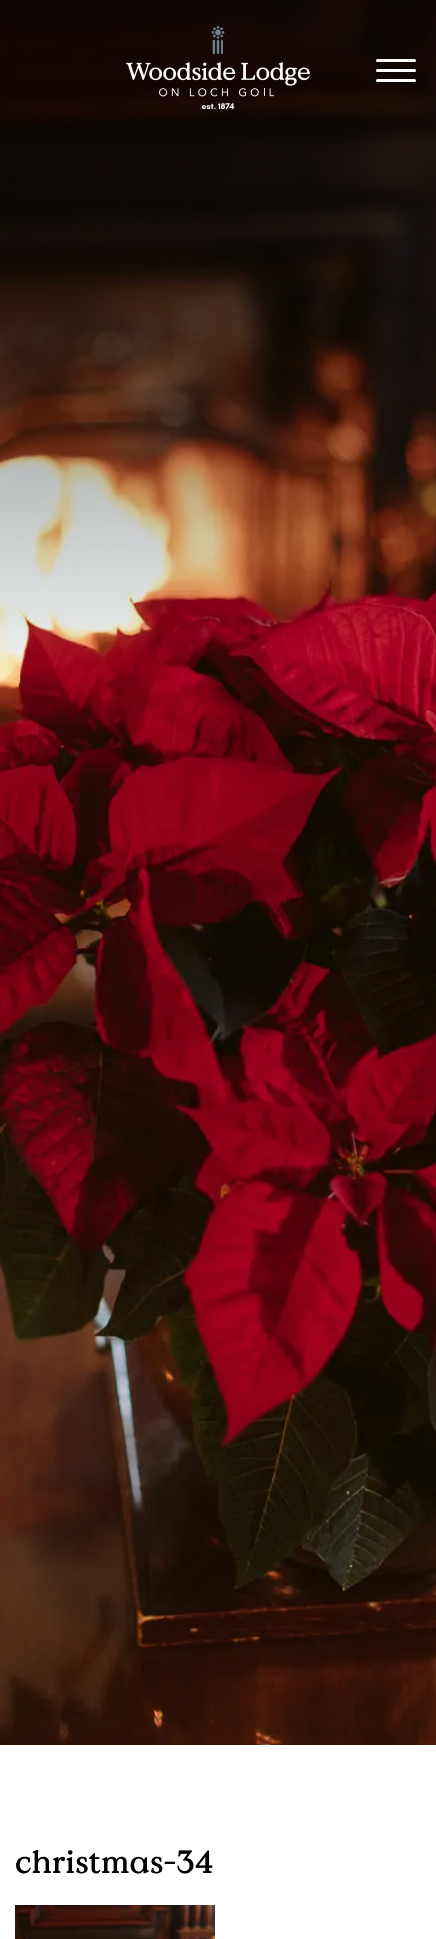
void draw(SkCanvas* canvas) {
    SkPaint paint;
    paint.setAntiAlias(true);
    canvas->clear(0xFFFFFFFF);
    canvas->drawImageRect(SkImages::DeferredFromEncodedData(SkData::MakeFromFileName("img1.png")), SkRect::MakeXYWH(0, 0, 436, 1745), SkSamplingOptions());
    canvas->drawImageRect(SkImages::DeferredFromEncodedData(SkData::MakeFromFileName("img2.png")), SkRect::MakeXYWH(126, 26, 184, 84), SkSamplingOptions());
    paint.setColor(0xFFFFFFFF);
    canvas->drawRoundRect(SkRect::MakeXYWH(376, 69, 40, 3), 1.5f, 1.5f, paint);
    canvas->drawRoundRect(SkRect::MakeXYWH(376, 59, 40, 3), 1.5f, 1.5f, paint);
    canvas->drawRoundRect(SkRect::MakeXYWH(376, 79, 40, 3), 1.5f, 1.5f, paint);
    SkFont font1(fontMgr->matchFamilyStyle("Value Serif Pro", SkFontStyle(500, SkFontStyle::kNormal_Width, SkFontStyle::kUpright_Slant)), 32);
    font1.setSubpixel(true);
    paint.setColor(0xFF000000);
    canvas->drawString("christmas-34", 15, 1873, font1, paint);
    canvas->drawImageRect(SkImages::DeferredFromEncodedData(SkData::MakeFromFileName("img3.png")), SkRect::MakeXYWH(15, 1905, 200, 34), SkSamplingOptions());
}
